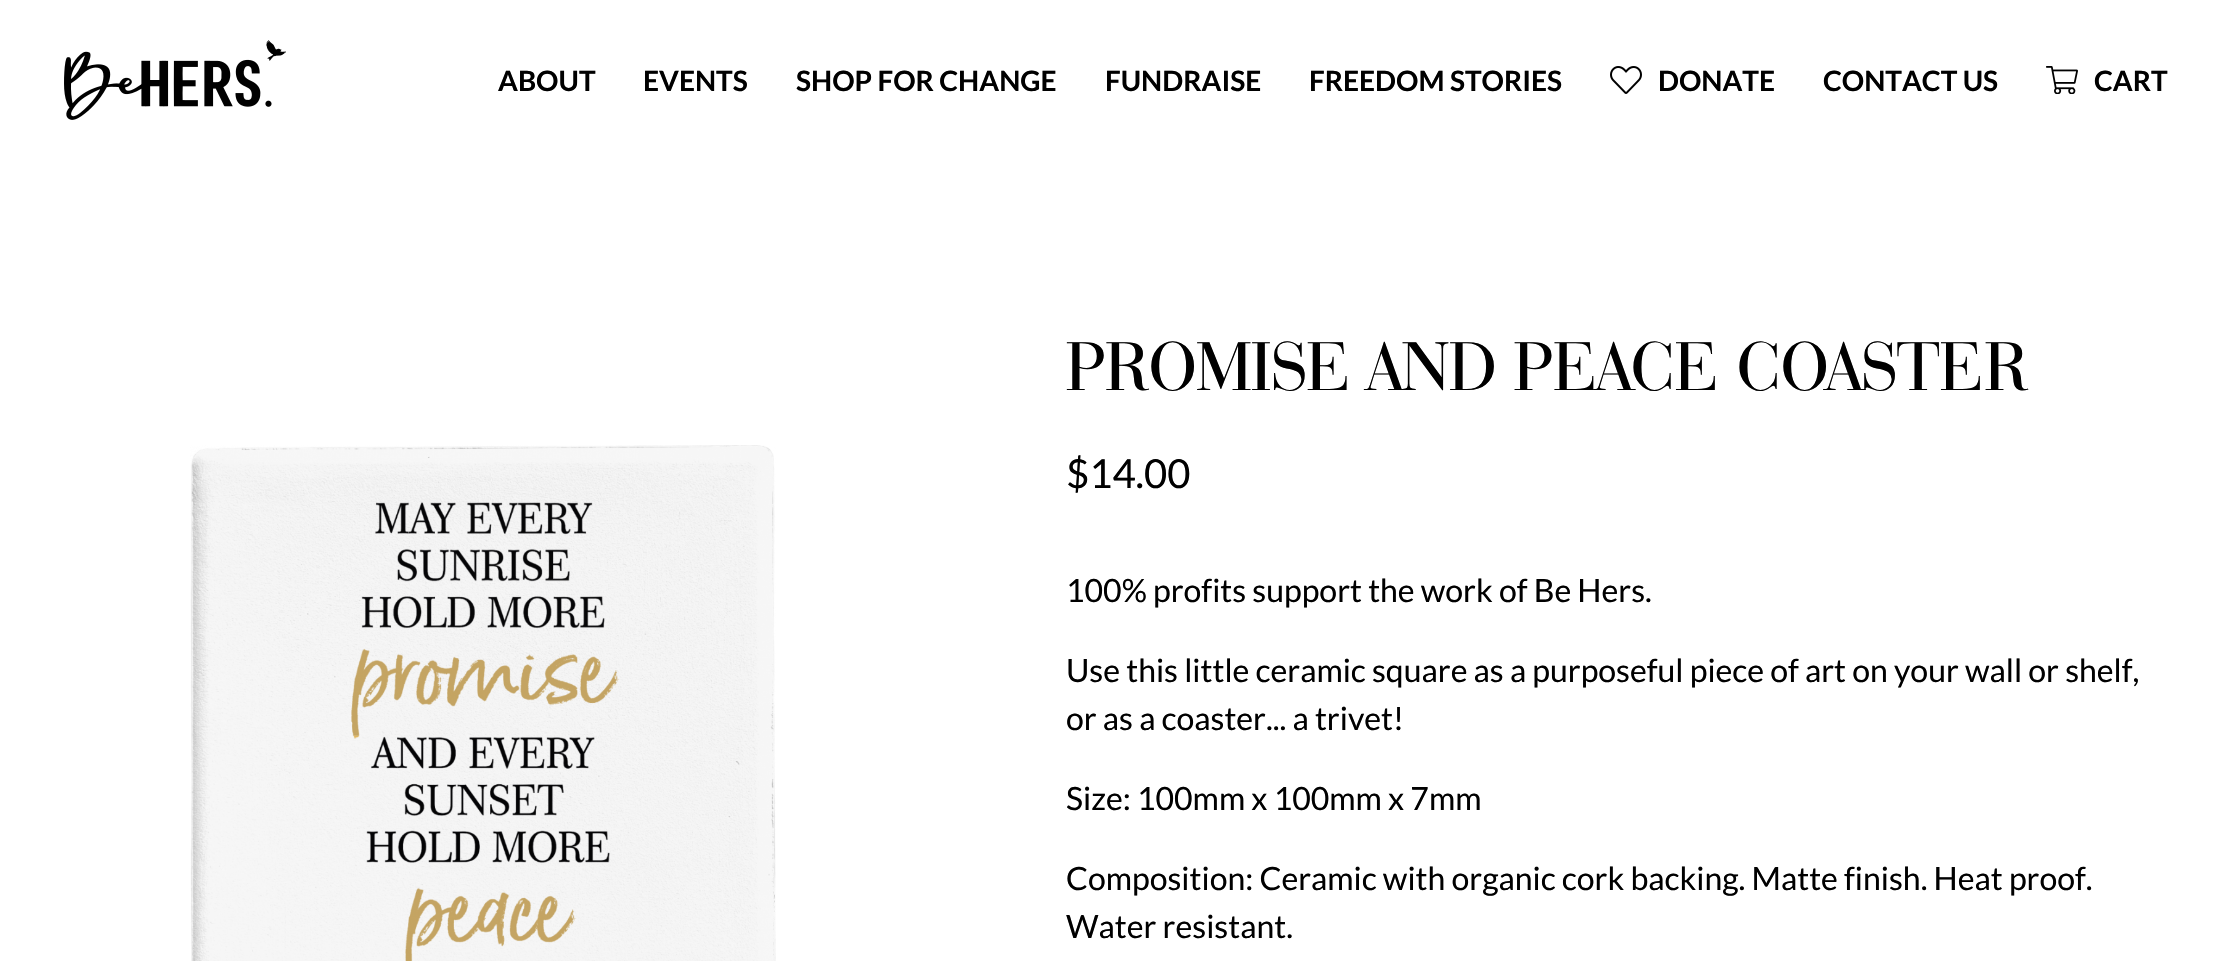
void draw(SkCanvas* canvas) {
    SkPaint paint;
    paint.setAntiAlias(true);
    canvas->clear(0xFFFFFFFF);
    canvas->drawImageRect(SkImages::DeferredFromEncodedData(SkData::MakeFromFileName("img1.png")), SkRect::MakeXYWH(64, 40, 222, 80), SkSamplingOptions());
    SkFont font1(fontMgr->matchFamilyStyle("Lato", SkFontStyle::Bold()), 28);
    font1.setSubpixel(true);
    paint.setColor(0xFF000000);
    canvas->drawString("ABOUT", 498, 91, font1, paint);
    canvas->drawString("EVENTS", 643, 91, font1, paint);
    canvas->drawString("SHOP FOR CHANGE", 796, 91, font1, paint);
    canvas->drawString("FUNDRAISE", 1105, 91, font1, paint);
    canvas->drawString("FREEDOM STORIES", 1309, 91, font1, paint);
    canvas->drawImageRect(SkImages::DeferredFromEncodedData(SkData::MakeFromFileName("img2.png")), SkRect::MakeXYWH(1610, 66, 32, 28), SkSamplingOptions());
    canvas->drawString("DONATE", 1658, 91, font1, paint);
    canvas->drawString("CONTACT US", 1823, 91, font1, paint);
    canvas->drawImageRect(SkImages::DeferredFromEncodedData(SkData::MakeFromFileName("img3.png")), SkRect::MakeXYWH(2046, 66, 32, 28), SkSamplingOptions());
    canvas->drawString("CART", 2094, 91, font1, paint);
    canvas->drawImageRect(SkImages::DeferredFromEncodedData(SkData::MakeFromFileName("img4.png")), SkRect::MakeXYWH(190, 445, 586, 516), SkSamplingOptions());
    SkFont font2(fontMgr->matchFamilyStyle("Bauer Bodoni", SkFontStyle::Normal()), 72);
    font2.setSubpixel(true);
    canvas->drawString("PROMISE AND PEACE COASTER", 1066, 390, font2, paint);
    SkFont font3(fontMgr->matchFamilyStyle("Lato", SkFontStyle::Normal()), 40);
    font3.setSubpixel(true);
    canvas->drawString("$14.00", 1066, 488, font3, paint);
    SkFont font4(fontMgr->matchFamilyStyle("Lato", SkFontStyle::Normal()), 32);
    font4.setSubpixel(true);
    canvas->drawString("100% profits support the work of Be Hers.", 1066, 602, font4, paint);
    canvas->drawString("Use this little ceramic square as a purposeful piece of art on your wall or shelf,", 1066, 682, font4, paint);
    canvas->drawString("or as a coaster... a trivet!", 1066, 730, font4, paint);
    canvas->drawString("Size: 100mm x 100mm x 7mm", 1066, 810, font4, paint);
    canvas->drawString("Composition: Ceramic with organic cork backing. Matte finish. Heat proof.", 1066, 890, font4, paint);
    canvas->drawString("Water resistant.", 1066, 938, font4, paint);
}
